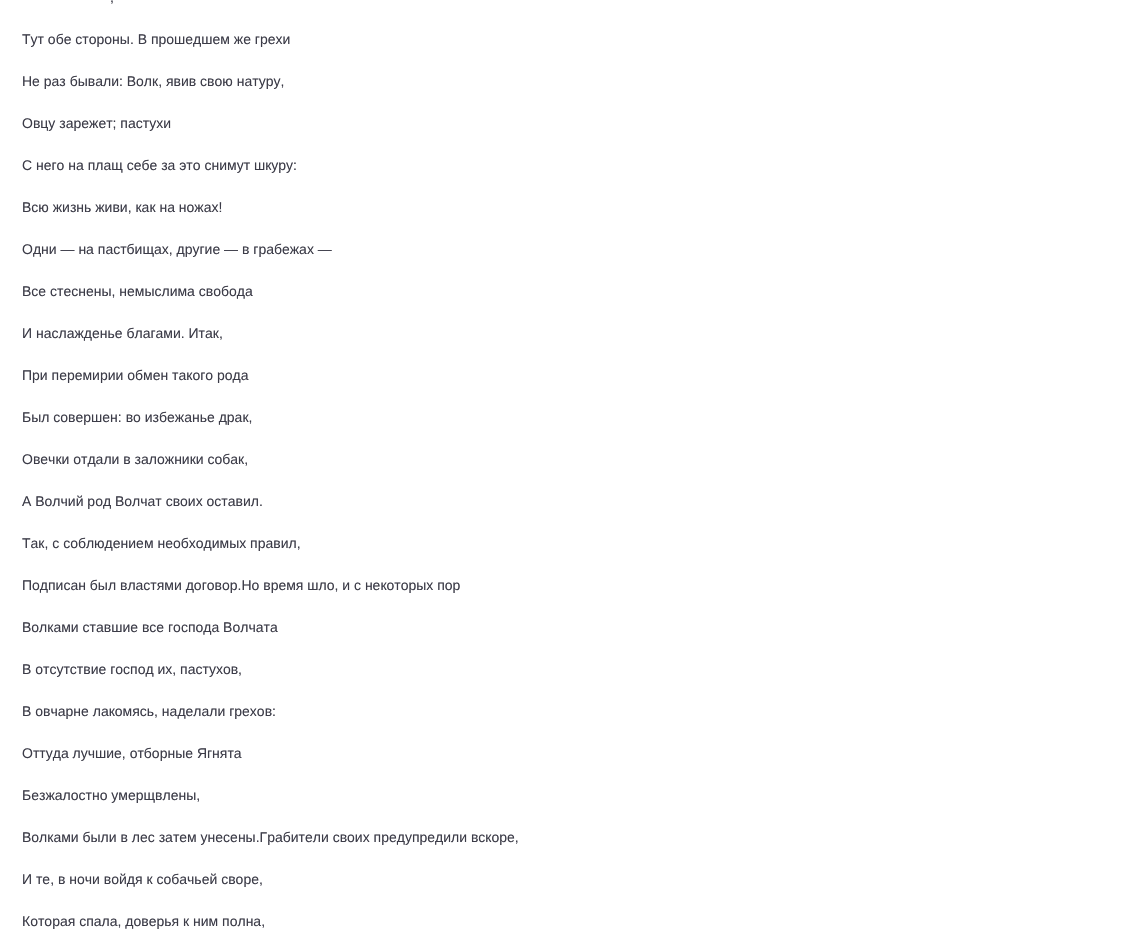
void draw(SkCanvas* canvas) {
    SkPaint paint;
    paint.setAntiAlias(true);
    canvas->clear(0xFFFFFFFF);
    SkFont font1(fontMgr->matchFamilyStyle("Liberation Sans", SkFontStyle::Normal()), 14);
    font1.setSubpixel(true);
    paint.setColor(0xFF3C3C48);
    canvas->drawString(",", 110, 2, font1, paint);
    canvas->drawString("Тут обе стороны. В прошедшем же грехи", 22, 44, font1, paint);
    canvas->drawString("Не раз бывали: Волк, явив свою натуру,", 22, 86, font1, paint);
    canvas->drawString("Овцу зарежет; пастухи", 22, 128, font1, paint);
    canvas->drawString("С него на плащ себе за это снимут шкуру:", 22, 170, font1, paint);
    canvas->drawString("Всю жизнь живи, как на ножах!", 22, 212, font1, paint);
    canvas->drawString("Одни — на пастбищах, другие — в грабежах —", 22, 254, font1, paint);
    canvas->drawString("Все стеснены, немыслима свобода", 22, 296, font1, paint);
    canvas->drawString("И наслажденье благами. Итак,", 22, 338, font1, paint);
    canvas->drawString("При перемирии обмен такого рода", 22, 380, font1, paint);
    canvas->drawString("Был совершен: во избежанье драк,", 22, 422, font1, paint);
    canvas->drawString("Овечки отдали в заложники собак,", 22, 464, font1, paint);
    canvas->drawString("А Волчий род Волчат своих оставил.", 22, 506, font1, paint);
    canvas->drawString("Так, с соблюдением необходимых правил,", 22, 548, font1, paint);
    canvas->drawString("Подписан был властями договор.Но время шло, и с некоторых пор", 22, 590, font1, paint);
    canvas->drawString("Волками ставшие все господа Волчата", 22, 632, font1, paint);
    canvas->drawString("В отсутствие господ их, пастухов,", 22, 674, font1, paint);
    canvas->drawString("В овчарне лакомясь, наделали грехов:", 22, 716, font1, paint);
    canvas->drawString("Оттуда лучшие, отборные Ягнята", 22, 758, font1, paint);
    canvas->drawString("Безжалостно умерщвлены,", 22, 800, font1, paint);
    canvas->drawString("Волками были в лес затем унесены.Грабители своих предупредили вскоре,", 22, 842, font1, paint);
    canvas->drawString("И те, в ночи войдя к собачьей своре,", 22, 884, font1, paint);
    canvas->drawString("Которая спала, доверья к ним полна,", 22, 926, font1, paint);
}
